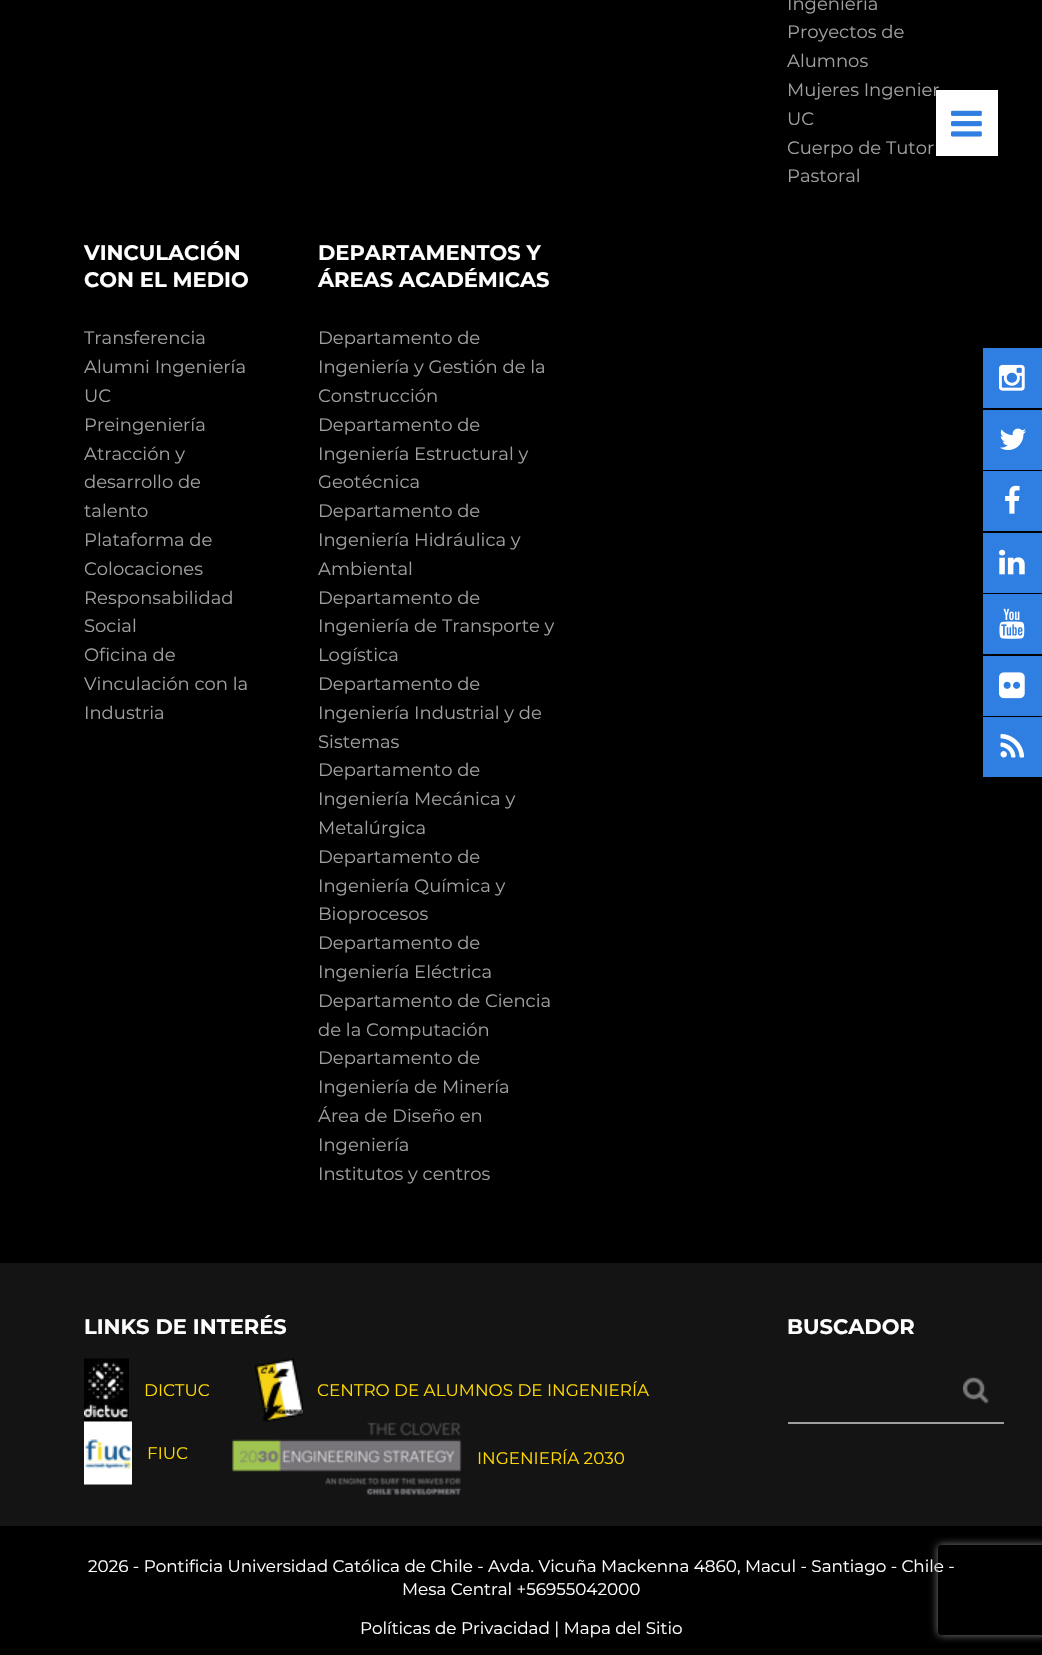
void draw(SkCanvas* canvas) {
    SkPaint paint;
    paint.setAntiAlias(true);
    canvas->clear(0xFF000000);
    SkFont font1(fontMgr->matchFamilyStyle("Montserrat", SkFontStyle::Normal()), 18);
    font1.setSubpixel(true);
    paint.setColor(0xFFA0A0A0);
    canvas->drawString("Ingeniería", 787, 10, font1, paint);
    canvas->drawString("Proyectos de", 787, 38, font1, paint);
    canvas->drawString("Alumnos", 787, 67, font1, paint);
    canvas->drawString("Mujeres Ingenier", 787, 96, font1, paint);
    canvas->drawString("UC", 787, 125, font1, paint);
    canvas->drawString("Cuerpo de Tutor", 787, 154, font1, paint);
    canvas->drawString("Pastoral", 787, 182, font1, paint);
    SkFont font2(fontMgr->matchFamilyStyle("Montserrat", SkFontStyle::Bold()), 21);
    font2.setSubpixel(true);
    paint.setColor(0xFFFFFFFF);
    canvas->drawString("VINCULACIÓN", 84, 260, font2, paint);
    canvas->drawString("CON EL MEDIO", 84, 287, font2, paint);
    paint.setColor(0xFFA0A0A0);
    canvas->drawString("Transferencia", 84, 344, font1, paint);
    canvas->drawString("Alumni Ingeniería", 84, 373, font1, paint);
    canvas->drawString("UC", 84, 402, font1, paint);
    canvas->drawString("Preingeniería", 84, 431, font1, paint);
    canvas->drawString("Atracción y", 84, 460, font1, paint);
    canvas->drawString("desarrollo de", 84, 488, font1, paint);
    canvas->drawString("talento", 84, 517, font1, paint);
    canvas->drawString("Plataforma de", 84, 546, font1, paint);
    canvas->drawString("Colocaciones", 84, 575, font1, paint);
    canvas->drawString("Responsabilidad", 84, 604, font1, paint);
    canvas->drawString("Social", 84, 632, font1, paint);
    canvas->drawString("Oficina de", 84, 661, font1, paint);
    canvas->drawString("Vinculación con la", 84, 690, font1, paint);
    canvas->drawString("Industria", 84, 719, font1, paint);
    paint.setColor(0xFFFFFFFF);
    canvas->drawString("DEPARTAMENTOS Y", 318, 260, font2, paint);
    canvas->drawString("ÁREAS ACADÉMICAS", 318, 287, font2, paint);
    paint.setColor(0xFFA0A0A0);
    canvas->drawString("Departamento de", 318, 344, font1, paint);
    canvas->drawString("Ingeniería y Gestión de la", 318, 373, font1, paint);
    canvas->drawString("Construcción", 318, 402, font1, paint);
    canvas->drawString("Departamento de", 318, 431, font1, paint);
    canvas->drawString("Ingeniería Estructural y", 318, 460, font1, paint);
    canvas->drawString("Geotécnica", 318, 488, font1, paint);
    canvas->drawString("Departamento de", 318, 517, font1, paint);
    canvas->drawString("Ingeniería Hidráulica y", 318, 546, font1, paint);
    canvas->drawString("Ambiental", 318, 575, font1, paint);
    canvas->drawString("Departamento de", 318, 604, font1, paint);
    canvas->drawString("Ingeniería de Transporte y", 318, 632, font1, paint);
    canvas->drawString("Logística", 318, 661, font1, paint);
    canvas->drawString("Departamento de", 318, 690, font1, paint);
    canvas->drawString("Ingeniería Industrial y de", 318, 719, font1, paint);
    canvas->drawString("Sistemas", 318, 748, font1, paint);
    canvas->drawString("Departamento de", 318, 776, font1, paint);
    canvas->drawString("Ingeniería Mecánica y", 318, 805, font1, paint);
    canvas->drawString("Metalúrgica", 318, 834, font1, paint);
    canvas->drawString("Departamento de", 318, 863, font1, paint);
    canvas->drawString("Ingeniería Química y", 318, 892, font1, paint);
    canvas->drawString("Bioprocesos", 318, 920, font1, paint);
    canvas->drawString("Departamento de", 318, 949, font1, paint);
    canvas->drawString("Ingeniería Eléctrica", 318, 978, font1, paint);
    canvas->drawString("Departamento de Ciencia", 318, 1007, font1, paint);
    canvas->drawString("de la Computación", 318, 1036, font1, paint);
    canvas->drawString("Departamento de", 318, 1064, font1, paint);
    canvas->drawString("Ingeniería de Minería", 318, 1093, font1, paint);
    canvas->drawString("Área de Diseño en", 318, 1122, font1, paint);
    canvas->drawString("Ingeniería", 318, 1151, font1, paint);
    canvas->drawString("Institutos y centros", 318, 1180, font1, paint);
    paint.setColor(0xFF141414);
    canvas->drawRect(SkRect::MakeXYWH(0, 1263, 1042, 263), paint);
    paint.setColor(0xFFFFFFFF);
    canvas->drawString("LINKS DE INTERÉS", 84, 1334, font2, paint);
    canvas->drawImageRect(SkImages::DeferredFromEncodedData(SkData::MakeFromFileName("img1.png")), SkRect::MakeXYWH(84, 1358, 45, 64), SkSamplingOptions());
    SkFont font3(fontMgr->matchFamilyStyle("Montserrat", SkFontStyle::Normal()), 16.8f);
    font3.setSubpixel(true);
    paint.setColor(0xFFFED802);
    canvas->drawString("DICTUC", 144, 1396, font3, paint);
    canvas->drawImageRect(SkImages::DeferredFromEncodedData(SkData::MakeFromFileName("img2.png")), SkRect::MakeXYWH(255, 1358, 48, 64), SkSamplingOptions());
    canvas->drawString("CENTRO DE ALUMNOS DE INGENIERÍA", 317, 1396, font3, paint);
    canvas->drawImageRect(SkImages::DeferredFromEncodedData(SkData::MakeFromFileName("img3.png")), SkRect::MakeXYWH(84, 1421, 48, 64), SkSamplingOptions());
    canvas->drawString("FIUC", 147, 1459, font3, paint);
    canvas->drawImageRect(SkImages::DeferredFromEncodedData(SkData::MakeFromFileName("img4.png")), SkRect::MakeXYWH(232, 1422, 230, 73), SkSamplingOptions());
    canvas->drawString("INGENIERÍA 2030", 477, 1464, font3, paint);
    paint.setColor(0xFFFFFFFF);
    canvas->drawString("BUSCADOR", 787, 1334, font2, paint);
    canvas->drawImageRect(SkImages::DeferredFromEncodedData(SkData::MakeFromFileName("img5.png")), SkRect::MakeXYWH(963, 1377, 26, 27), SkSamplingOptions());
    paint.setColor(0xFF9E9E9E);
    canvas->drawRect(SkRect::MakeXYWH(788, 1422, 216, 2), paint);
    paint.setColor(0xFFFFFFFF);
    canvas->drawString("2026 - Pontificia Universidad Católica de Chile - Avda. Vicuña Mackenna 4860, Macul - Santiago - Chile -", 88, 1572, font3, paint);
    canvas->drawString("Mesa Central +56955042000", 402, 1595, font3, paint);
    canvas->drawString("Políticas de Privacidad | Mapa del Sitio", 360, 1634, font3, paint);
    canvas->drawRect(SkRect::MakeXYWH(936, 90, 62, 66), paint);
    canvas->drawImageRect(SkImages::DeferredFromEncodedData(SkData::MakeFromFileName("img6.png")), SkRect::MakeXYWH(951, 110, 31, 27), SkSamplingOptions());
    paint.setColor(0xFF2F7EE1);
    canvas->drawRect(SkRect::MakeXYWH(983, 348, 59, 60), paint);
    canvas->drawImageRect(SkImages::DeferredFromEncodedData(SkData::MakeFromFileName("img7.png")), SkRect::MakeXYWH(999, 364, 26, 27), SkSamplingOptions());
    canvas->drawRect(SkRect::MakeXYWH(983, 410, 59, 60), paint);
    canvas->drawImageRect(SkImages::DeferredFromEncodedData(SkData::MakeFromFileName("img8.png")), SkRect::MakeXYWH(1000, 428, 26, 22), SkSamplingOptions());
    canvas->drawRect(SkRect::MakeXYWH(983, 471, 59, 60), paint);
    canvas->drawImageRect(SkImages::DeferredFromEncodedData(SkData::MakeFromFileName("img9.png")), SkRect::MakeXYWH(1005, 485, 15, 29), SkSamplingOptions());
    canvas->drawRect(SkRect::MakeXYWH(983, 533, 59, 60), paint);
    canvas->drawImageRect(SkImages::DeferredFromEncodedData(SkData::MakeFromFileName("img10.png")), SkRect::MakeXYWH(999, 549, 26, 26), SkSamplingOptions());
    canvas->drawRect(SkRect::MakeXYWH(983, 594, 59, 60), paint);
    canvas->drawImageRect(SkImages::DeferredFromEncodedData(SkData::MakeFromFileName("img11.png")), SkRect::MakeXYWH(999, 608, 26, 31), SkSamplingOptions());
    canvas->drawRect(SkRect::MakeXYWH(983, 656, 59, 60), paint);
    canvas->drawImageRect(SkImages::DeferredFromEncodedData(SkData::MakeFromFileName("img12.png")), SkRect::MakeXYWH(999, 672, 26, 27), SkSamplingOptions());
    canvas->drawRect(SkRect::MakeXYWH(983, 717, 59, 60), paint);
    canvas->drawImageRect(SkImages::DeferredFromEncodedData(SkData::MakeFromFileName("img13.png")), SkRect::MakeXYWH(1000, 733, 25, 25), SkSamplingOptions());
    canvas->save();
    canvas->clipPath(SkPathBuilder(SkPathFillType::kEvenOdd).moveTo(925, 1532).lineTo(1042, 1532).lineTo(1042, 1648).lineTo(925, 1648).close().moveTo(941, 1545).lineTo(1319, 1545).cubicTo(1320.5f, 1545, 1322, 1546.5f, 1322, 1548).lineTo(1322, 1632).cubicTo(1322, 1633.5f, 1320.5f, 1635, 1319, 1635).lineTo(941, 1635).cubicTo(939.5f, 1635, 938, 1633.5f, 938, 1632).lineTo(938, 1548).cubicTo(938, 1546.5f, 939.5f, 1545, 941, 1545).close().detach(), true);
    paint.setColor(0xFF808080);
    paint.setMaskFilter(SkMaskFilter::MakeBlur(kNormal_SkBlurStyle, 4));
    canvas->drawRoundRect(SkRect::MakeXYWH(938, 1545, 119, 90), 3, 3, paint);
    paint.setMaskFilter(nullptr);
    canvas->restore();
}
